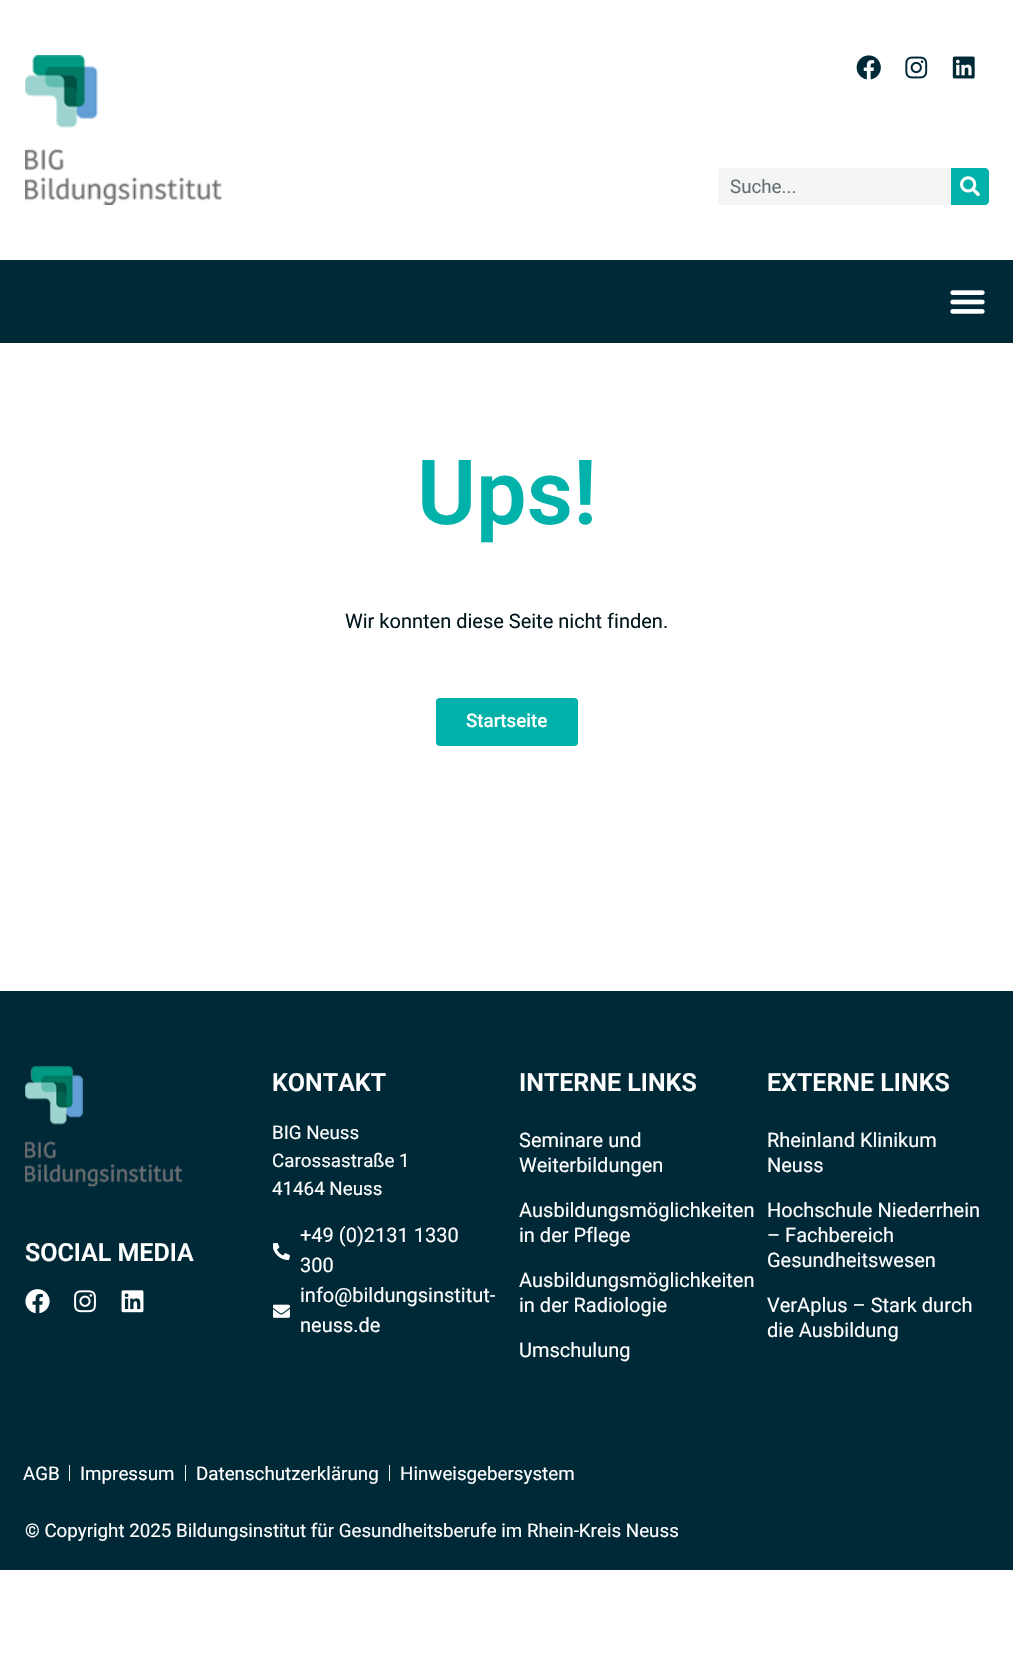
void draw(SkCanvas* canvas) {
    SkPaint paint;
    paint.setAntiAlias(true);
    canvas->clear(0xFFFFFFFF);
    canvas->drawImageRect(SkImages::DeferredFromEncodedData(SkData::MakeFromFileName("img1.png")), SkRect::MakeXYWH(25, 55, 197, 150), SkSamplingOptions());
    canvas->drawImageRect(SkImages::DeferredFromEncodedData(SkData::MakeFromFileName("img2.png")), SkRect::MakeXYWH(856, 55, 25, 25), SkSamplingOptions());
    canvas->drawImageRect(SkImages::DeferredFromEncodedData(SkData::MakeFromFileName("img3.png")), SkRect::MakeXYWH(905, 56, 23, 23), SkSamplingOptions());
    canvas->drawImageRect(SkImages::DeferredFromEncodedData(SkData::MakeFromFileName("img4.png")), SkRect::MakeXYWH(952, 56, 23, 23), SkSamplingOptions());
    paint.setColor(0xFFF5F5F5);
    canvas->drawRoundRect(SkRect::MakeXYWH(718, 168, 271, 37), 4, 4, paint);
    SkFont font1(fontMgr->matchFamilyStyle("Roboto", SkFontStyle::Normal()), 18.75f);
    font1.setSubpixel(true);
    paint.setColor(0xFF626F73);
    canvas->drawString("Suche...", 730, 193, font1, paint);
    paint.setColor(0xFF00B2A9);
    canvas->drawPath(SkPathBuilder().moveTo(951, 168).lineTo(985, 168).cubicTo(987, 168, 989, 170, 989, 172).lineTo(989, 201).cubicTo(989, 203, 987, 205, 985, 205).lineTo(951, 205).close().detach(), paint);
    canvas->drawImageRect(SkImages::DeferredFromEncodedData(SkData::MakeFromFileName("img5.png")), SkRect::MakeXYWH(960, 176, 20, 20), SkSamplingOptions());
    paint.setColor(0xFF002938);
    canvas->drawRect(SkRect::MakeXYWH(0, 260, 1013, 83), paint);
    canvas->drawImageRect(SkImages::DeferredFromEncodedData(SkData::MakeFromFileName("img6.png")), SkRect::MakeXYWH(950, 290, 35, 24), SkSamplingOptions());
    SkFont font2(fontMgr->matchFamilyStyle("Roboto", SkFontStyle(600, SkFontStyle::kNormal_Width, SkFontStyle::kUpright_Slant)), 90);
    font2.setSubpixel(true);
    paint.setColor(0xFF00B2A9);
    canvas->drawString("Ups!", 417, 524, font2, paint);
    SkFont font3(fontMgr->matchFamilyStyle("Roboto", SkFontStyle::Normal()), 20);
    font3.setSubpixel(true);
    paint.setColor(0xFF00151C);
    canvas->drawString("Wir konnten diese Seite nicht finden.", 345, 628, font3, paint);
    paint.setColor(0xFF00B2A9);
    canvas->drawRoundRect(SkRect::MakeXYWH(436, 698, 142, 48), 4, 4, paint);
    SkFont font4(fontMgr->matchFamilyStyle("Roboto", SkFontStyle(500, SkFontStyle::kNormal_Width, SkFontStyle::kUpright_Slant)), 18.75f);
    font4.setSubpixel(true);
    paint.setColor(0xFFFFFFFF);
    canvas->drawString("Startseite", 466, 727, font4, paint);
    paint.setColor(0xFF002938);
    canvas->drawRect(SkRect::MakeXYWH(0, 991, 1013, 579), paint);
    canvas->drawImageRect(SkImages::DeferredFromEncodedData(SkData::MakeFromFileName("img7.png")), SkRect::MakeXYWH(25, 1066, 157, 121), SkSamplingOptions());
    SkFont font5(fontMgr->matchFamilyStyle("Roboto", SkFontStyle(600, SkFontStyle::kNormal_Width, SkFontStyle::kUpright_Slant)), 25);
    font5.setSubpixel(true);
    paint.setColor(0xFFFFFFFF);
    canvas->drawString("SOCIAL MEDIA", 25, 1261, font5, paint);
    canvas->drawImageRect(SkImages::DeferredFromEncodedData(SkData::MakeFromFileName("img8.png")), SkRect::MakeXYWH(25, 1289, 25, 25), SkSamplingOptions());
    canvas->drawImageRect(SkImages::DeferredFromEncodedData(SkData::MakeFromFileName("img9.png")), SkRect::MakeXYWH(74, 1290, 22, 23), SkSamplingOptions());
    canvas->drawImageRect(SkImages::DeferredFromEncodedData(SkData::MakeFromFileName("img10.png")), SkRect::MakeXYWH(121, 1290, 23, 23), SkSamplingOptions());
    canvas->drawString("KONTAKT", 272, 1091, font5, paint);
    canvas->drawString("BIG Neuss", 272, 1139, font1, paint);
    canvas->drawString("Carossastraße 1", 272, 1167, font1, paint);
    canvas->drawString("41464 Neuss", 272, 1195, font1, paint);
    canvas->drawImageRect(SkImages::DeferredFromEncodedData(SkData::MakeFromFileName("img11.png")), SkRect::MakeXYWH(273, 1243, 17, 17), SkSamplingOptions());
    canvas->drawString("+49 (0)2131 1330", 300, 1242, font3, paint);
    canvas->drawString("300", 300, 1272, font3, paint);
    canvas->drawImageRect(SkImages::DeferredFromEncodedData(SkData::MakeFromFileName("img12.png")), SkRect::MakeXYWH(273, 1304, 17, 14), SkSamplingOptions());
    canvas->drawString("info@bildungsinstitut-", 300, 1302, font3, paint);
    canvas->drawString("neuss.de", 300, 1332, font3, paint);
    canvas->drawString("INTERNE LINKS", 519, 1091, font5, paint);
    canvas->drawString("Seminare und", 519, 1147, font3, paint);
    canvas->drawString("Weiterbildungen", 519, 1172, font3, paint);
    canvas->drawString("Ausbildungsmöglichkeiten", 519, 1217, font3, paint);
    canvas->drawString("in der Pflege", 519, 1242, font3, paint);
    canvas->drawString("Ausbildungsmöglichkeiten", 519, 1287, font3, paint);
    canvas->drawString("in der Radiologie", 519, 1312, font3, paint);
    canvas->drawString("Umschulung", 519, 1357, font3, paint);
    canvas->drawString("EXTERNE LINKS", 767, 1091, font5, paint);
    canvas->drawString("Rheinland Klinikum", 767, 1147, font3, paint);
    canvas->drawString("Neuss", 767, 1172, font3, paint);
    canvas->drawString("Hochschule Niederrhein", 767, 1217, font3, paint);
    canvas->drawString("– Fachbereich", 767, 1242, font3, paint);
    canvas->drawString("Gesundheitswesen", 767, 1267, font3, paint);
    canvas->drawString("VerAplus – Stark durch", 767, 1312, font3, paint);
    canvas->drawString("die Ausbildung", 767, 1337, font3, paint);
    canvas->drawString("AGB", 23, 1480, font1, paint);
    paint.setColor(0xFFF5F5F5);
    canvas->drawRect(SkRect::MakeXYWH(69, 1465, 1, 16), paint);
    paint.setColor(0xFFFFFFFF);
    canvas->drawString("Impressum", 80, 1480, font1, paint);
    paint.setColor(0xFFF5F5F5);
    canvas->drawRect(SkRect::MakeXYWH(185, 1465, 1, 16), paint);
    paint.setColor(0xFFFFFFFF);
    canvas->drawString("Datenschutzerklärung", 196, 1480, font1, paint);
    paint.setColor(0xFFF5F5F5);
    canvas->drawRect(SkRect::MakeXYWH(389, 1465, 1, 16), paint);
    paint.setColor(0xFFFFFFFF);
    canvas->drawString("Hinweisgebersystem", 400, 1480, font1, paint);
    canvas->drawString("© Copyright 2025 Bildungsinstitut für Gesundheitsberufe im Rhein-Kreis Neuss", 25, 1537, font1, paint);
}
